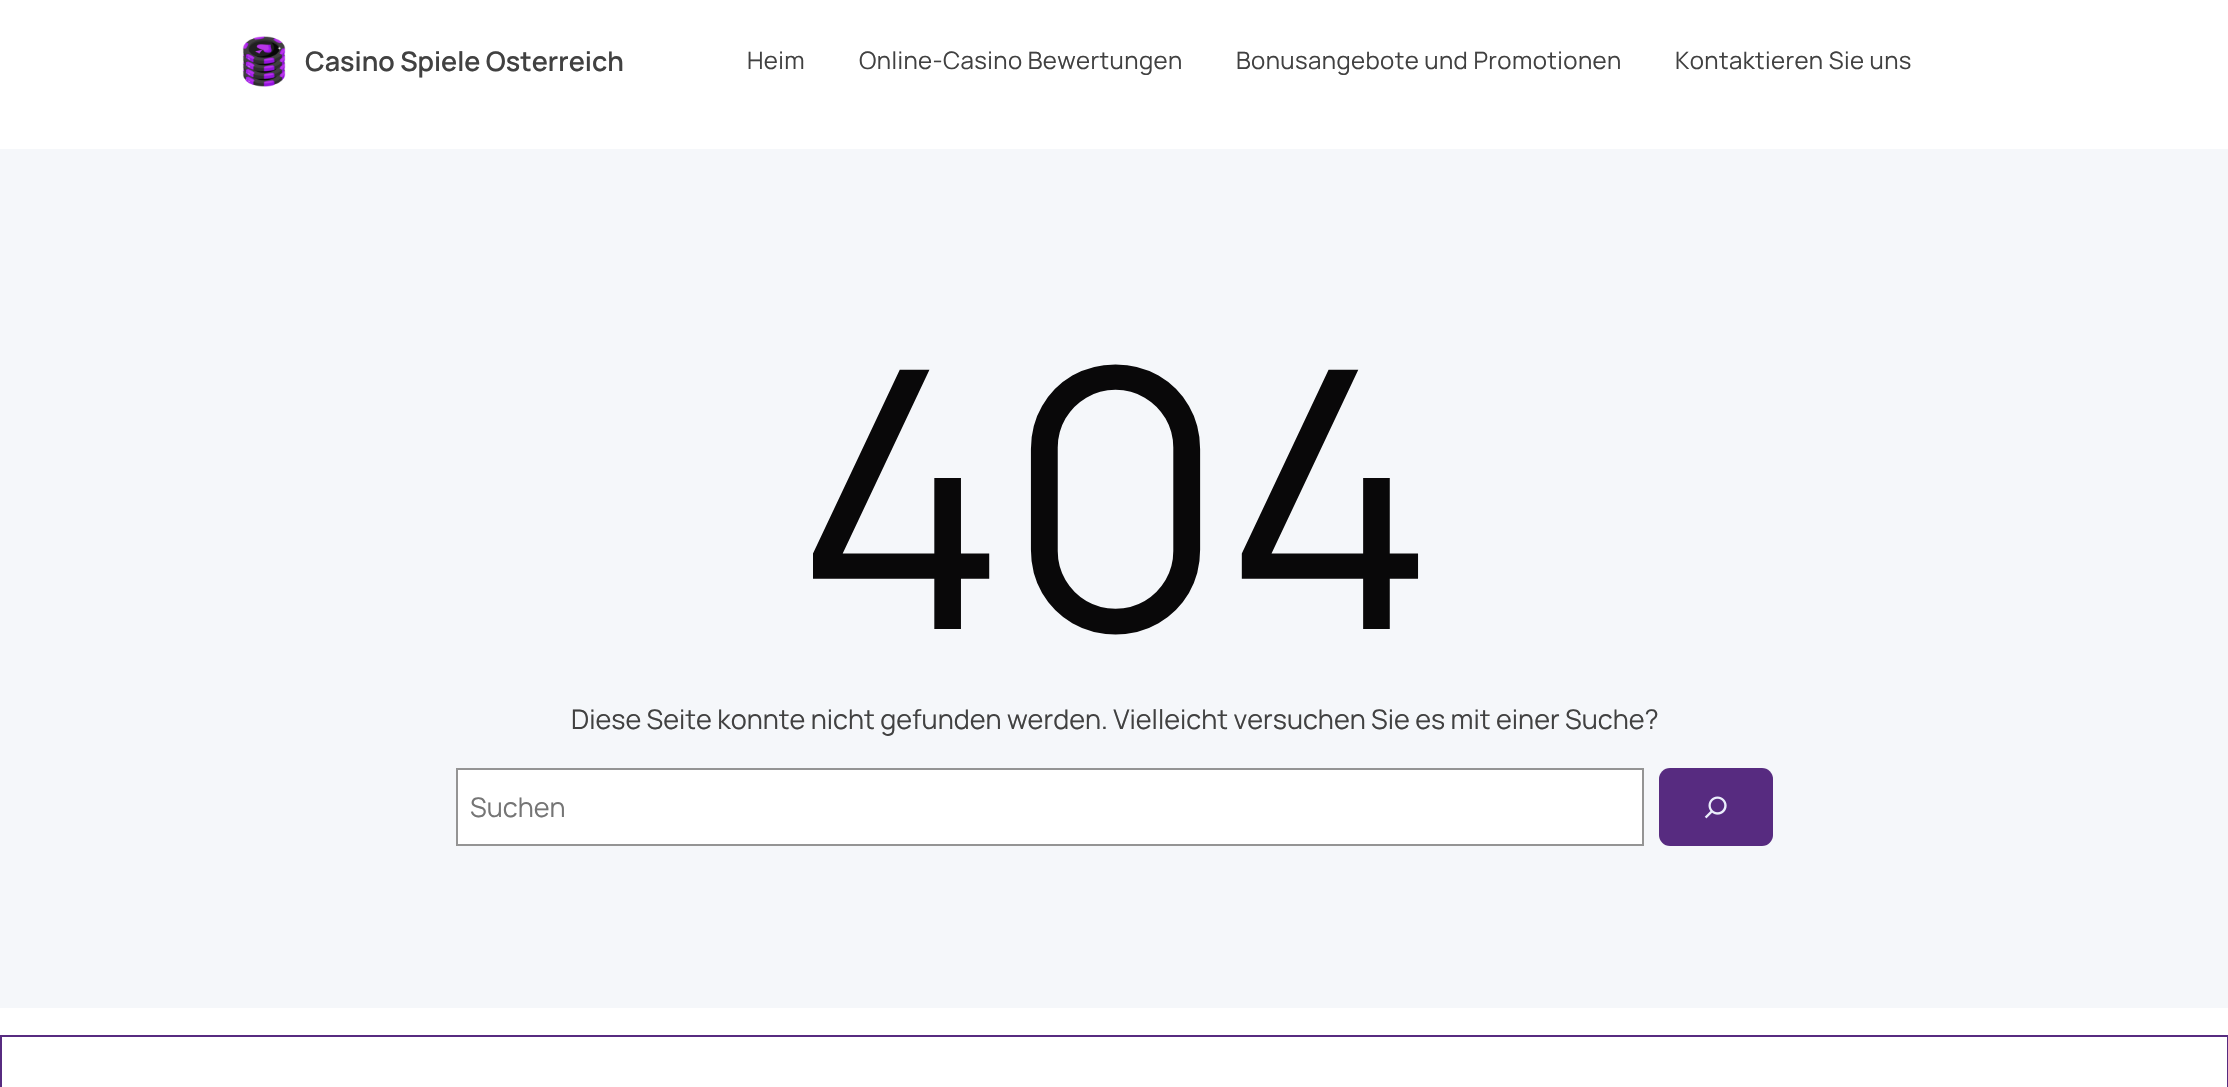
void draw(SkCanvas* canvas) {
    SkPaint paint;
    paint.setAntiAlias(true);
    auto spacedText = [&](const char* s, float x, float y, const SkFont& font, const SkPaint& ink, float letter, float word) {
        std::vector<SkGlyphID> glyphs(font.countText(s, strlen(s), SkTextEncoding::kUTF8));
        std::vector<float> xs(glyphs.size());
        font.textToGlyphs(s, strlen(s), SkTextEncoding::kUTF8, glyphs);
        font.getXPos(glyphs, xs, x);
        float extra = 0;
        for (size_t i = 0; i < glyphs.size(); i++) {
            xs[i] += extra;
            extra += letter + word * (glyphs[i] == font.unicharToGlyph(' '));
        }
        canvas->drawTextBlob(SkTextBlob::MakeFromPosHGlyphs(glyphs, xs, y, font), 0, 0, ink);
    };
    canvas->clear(0xFFFFFFFF);
    canvas->drawImageRect(SkImages::DeferredFromEncodedData(SkData::MakeFromFileName("img1.png")), SkRect::MakeXYWH(242, 36, 44, 51), SkSamplingOptions());
    SkFont font1(fontMgr->matchFamilyStyle("Manrope", SkFontStyle(600, SkFontStyle::kNormal_Width, SkFontStyle::kUpright_Slant)), 27);
    font1.setSubpixel(true);
    paint.setColor(0xFF414141);
    canvas->drawString("Casino Spiele Osterreich", 305, 71, font1, paint);
    SkFont font2(fontMgr->matchFamilyStyle("Manrope", SkFontStyle::Normal()), 24);
    font2.setSubpixel(true);
    spacedText("Heim", 747, 69, font2, paint, 0.4f, 0);
    spacedText("Online-Casino Bewertungen", 859, 69, font2, paint, 0.4f, 0);
    spacedText("Bonusangebote und Promotionen", 1236, 69, font2, paint, 0.4f, 0);
    spacedText("Kontaktieren Sie uns", 1675, 69, font2, paint, 0.4f, 0);
    paint.setColor(0xFFF5F7FA);
    canvas->drawRect(SkRect::MakeXYWH(0, 149, 2228, 859), paint);
    SkFont font3(fontMgr->matchFamilyStyle("Manrope", SkFontStyle::Normal()), 360);
    font3.setSubpixel(true);
    paint.setColor(0xFF090809);
    spacedText("404", 795, 629, font3, paint, -1.5f, 0);
    SkFont font4(fontMgr->matchFamilyStyle("Manrope", SkFontStyle::Normal()), 27);
    font4.setSubpixel(true);
    paint.setColor(0xFF414141);
    canvas->drawString("Diese Seite konnte nicht gefunden werden. Vielleicht versuchen Sie es mit einer Suche?", 571, 729, font4, paint);
    paint.setColor(0xFFFFFFFF);
    canvas->drawRect(SkRect::MakeXYWH(457, 769, 1186, 76), paint);
    paint.setStyle(SkPaint::kStroke_Style);
    paint.setStrokeWidth(2);
    paint.setColor(0xFF949494);
    canvas->drawRect(SkRect::MakeXYWH(457, 769, 1186, 76), paint);
    paint.setStyle(SkPaint::kFill_Style);
    paint.setColor(0xFF757575);
    canvas->drawString("Suchen", 470, 817, font4, paint);
    paint.setColor(0xFF572B80);
    canvas->drawRoundRect(SkRect::MakeXYWH(1659, 768, 114, 78), 11, 11, paint);
    canvas->drawImageRect(SkImages::DeferredFromEncodedData(SkData::MakeFromFileName("img2.png")), SkRect::MakeXYWH(1704, 796, 23, 23), SkSamplingOptions());
    paint.setStyle(SkPaint::kStroke_Style);
    canvas->drawRect(SkRect::MakeXYWH(1, 1036, 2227, 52), paint);
}
